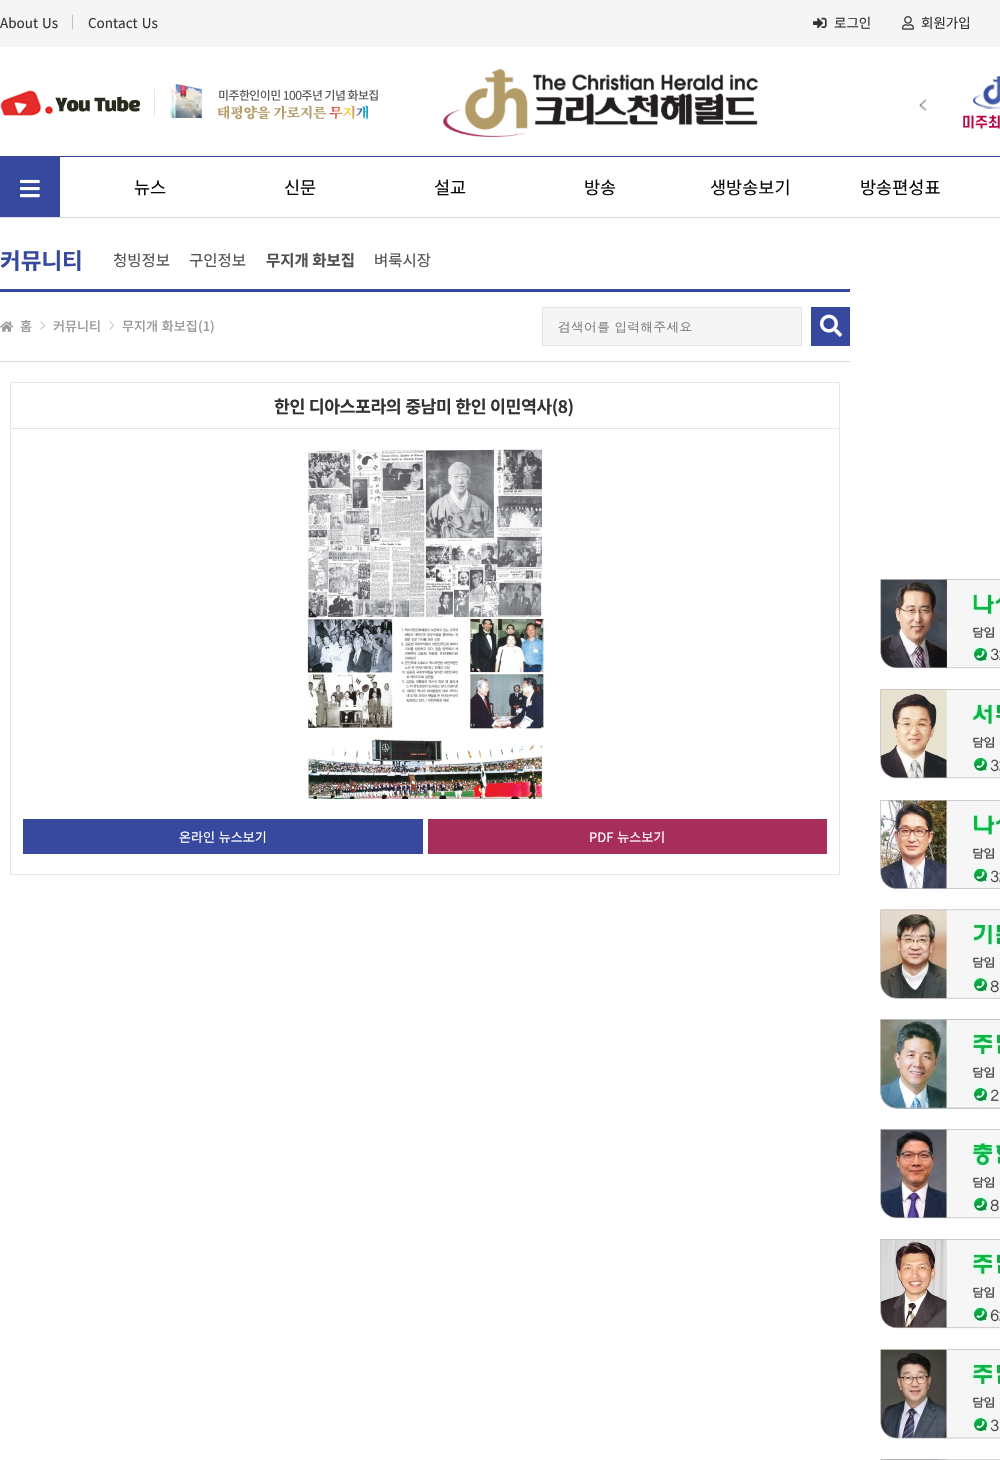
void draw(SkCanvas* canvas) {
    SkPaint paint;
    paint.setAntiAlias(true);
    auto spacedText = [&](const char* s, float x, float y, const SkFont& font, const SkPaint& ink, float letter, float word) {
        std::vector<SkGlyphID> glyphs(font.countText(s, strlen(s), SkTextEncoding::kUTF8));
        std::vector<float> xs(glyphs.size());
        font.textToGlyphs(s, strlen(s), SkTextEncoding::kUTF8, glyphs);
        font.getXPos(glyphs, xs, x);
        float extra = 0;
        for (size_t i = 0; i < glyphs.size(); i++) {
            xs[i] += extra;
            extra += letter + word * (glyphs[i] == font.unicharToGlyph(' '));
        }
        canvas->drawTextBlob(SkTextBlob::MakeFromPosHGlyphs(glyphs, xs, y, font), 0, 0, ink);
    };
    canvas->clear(0xFFFFFFFF);
    paint.setColor(0xFFF5F5F5);
    canvas->drawRect(SkRect::MakeXYWH(0, 0, 1000, 47), paint);
    SkFont font1(fontMgr->matchFamilyStyle("Noto Sans KR", SkFontStyle::Normal()), 13.5f);
    font1.setSubpixel(true);
    paint.setColor(0xFF333333);
    spacedText("About Us", 0, 28, font1, paint, 0, 1);
    paint.setColor(0xFFC0C0C0);
    canvas->drawRect(SkRect::MakeXYWH(72, 15, 1, 14), paint);
    paint.setColor(0xFF333333);
    spacedText("Contact Us", 88, 28, font1, paint, 0, 1);
    canvas->drawImageRect(SkImages::DeferredFromEncodedData(SkData::MakeFromFileName("img1.png")), SkRect::MakeXYWH(813, 17, 14, 12), SkSamplingOptions());
    canvas->drawString("로그인", 834, 28, font1, paint);
    canvas->drawImageRect(SkImages::DeferredFromEncodedData(SkData::MakeFromFileName("img2.png")), SkRect::MakeXYWH(902, 16, 12, 14), SkSamplingOptions());
    canvas->drawString("회원가입", 921, 28, font1, paint);
    canvas->drawImageRect(SkImages::DeferredFromEncodedData(SkData::MakeFromFileName("img3.png")), SkRect::MakeXYWH(0, 90, 140, 26), SkSamplingOptions());
    paint.setColor(0xFFE5E5E5);
    canvas->drawRect(SkRect::MakeXYWH(154, 89, 1, 27), paint);
    canvas->drawImageRect(SkImages::DeferredFromEncodedData(SkData::MakeFromFileName("img4.png")), SkRect::MakeXYWH(170, 84, 208, 36), SkSamplingOptions());
    canvas->drawImageRect(SkImages::DeferredFromEncodedData(SkData::MakeFromFileName("img5.png")), SkRect::MakeXYWH(442, 68, 316, 69), SkSamplingOptions());
    paint.setColor(0xFFB3B3B3);
    canvas->drawPath(SkPathBuilder().moveTo(925.5f, 99).lineTo(926.5f, 101).lineTo(920.5f, 106).lineTo(919.5f, 104.5f).close().detach(), paint);
    paint.setColor(0x4D000000);
    canvas->drawPath(SkPathBuilder().moveTo(919.5f, 106).lineTo(920.5f, 104).lineTo(926.5f, 109.5f).lineTo(925.5f, 111).close().detach(), paint);
    canvas->drawImageRect(SkImages::DeferredFromEncodedData(SkData::MakeFromFileName("img6.png")), SkRect::MakeXYWH(963, 76, 37, 53), SkSamplingOptions());
    paint.setColor(0xFF36499F);
    canvas->drawRect(SkRect::MakeXYWH(0, 156, 1000, 1), paint);
    paint.setColor(0xFFDADADA);
    canvas->drawRect(SkRect::MakeXYWH(0, 217, 1000, 1), paint);
    paint.setColor(0xFF36499F);
    canvas->drawRect(SkRect::MakeXYWH(0, 157, 60, 60), paint);
    canvas->drawImageRect(SkImages::DeferredFromEncodedData(SkData::MakeFromFileName("img7.png")), SkRect::MakeXYWH(20, 179, 20, 19), SkSamplingOptions());
    SkFont font2(fontMgr->matchFamilyStyle("Noto Sans KR", SkFontStyle::Normal()), 17.5f);
    font2.setSubpixel(true);
    paint.setColor(0xFF080808);
    canvas->drawString("뉴스", 134, 194, font2, paint);
    canvas->drawString("신문", 284, 194, font2, paint);
    canvas->drawString("설교", 434, 194, font2, paint);
    canvas->drawString("방송", 584, 194, font2, paint);
    canvas->drawString("생방송보기", 710, 194, font2, paint);
    canvas->drawString("방송편성표", 860, 194, font2, paint);
    paint.setColor(0xFF37499F);
    canvas->drawRect(SkRect::MakeXYWH(0, 289, 850, 3), paint);
    SkFont font3(fontMgr->matchFamilyStyle("Noto Sans KR", SkFontStyle::Bold()), 22.5f);
    font3.setSubpixel(true);
    canvas->drawString("커뮤니티", 0, 269, font3, paint);
    SkFont font4(fontMgr->matchFamilyStyle("Noto Sans KR", SkFontStyle::Normal()), 15.5f);
    font4.setSubpixel(true);
    paint.setColor(0xFF505050);
    canvas->drawString("청빙정보", 113, 266, font4, paint);
    canvas->drawString("구인정보", 189, 266, font4, paint);
    SkFont font5(fontMgr->matchFamilyStyle("Noto Sans KR", SkFontStyle::Bold()), 15.5f);
    font5.setSubpixel(true);
    canvas->drawString("무지개 화보집", 266, 266, font5, paint);
    canvas->drawString("벼룩시장", 374, 266, font4, paint);
    paint.setColor(0xFFDADADA);
    canvas->drawRect(SkRect::MakeXYWH(0, 361, 850, 1), paint);
    canvas->drawImageRect(SkImages::DeferredFromEncodedData(SkData::MakeFromFileName("img8.png")), SkRect::MakeXYWH(0, 321, 14, 11), SkSamplingOptions());
    SkFont font6(fontMgr->matchFamilyStyle("Noto Sans KR", SkFontStyle(500, SkFontStyle::kNormal_Width, SkFontStyle::kUpright_Slant)), 13);
    font6.setSubpixel(true);
    paint.setColor(0xFF999999);
    canvas->drawString("홈", 20, 331, font6, paint);
    SkFont font7(fontMgr->matchFamilyStyle("NanumGothic", SkFontStyle::Normal()), 10);
    font7.setSubpixel(true);
    paint.setColor(0xFFB2B2B2);
    canvas->drawString(">", 40, 329, font7, paint);
    paint.setColor(0xFF999999);
    canvas->drawString("커뮤니티", 53, 331, font6, paint);
    paint.setColor(0xFFB2B2B2);
    canvas->drawString(">", 109, 329, font7, paint);
    paint.setColor(0xFF999999);
    spacedText("무지개 화보집", 122, 331, font6, paint, 0, 1);
    canvas->drawString("(1)", 198, 331, font6, paint);
    paint.setColor(0xFFF5F5F5);
    canvas->drawRect(SkRect::MakeXYWH(542.5f, 307.5f, 259, 38), paint);
    paint.setStyle(SkPaint::kStroke_Style);
    paint.setStrokeWidth(1);
    paint.setColor(0xFFE2E2E4);
    canvas->drawRect(SkRect::MakeXYWH(542.5f, 307.5f, 259, 38), paint);
    SkFont font8(fontMgr->matchFamilyStyle("Dotum", SkFontStyle::Normal()), 13);
    font8.setSubpixel(true);
    paint.setStyle(SkPaint::kFill_Style);
    paint.setColor(0xFF757575);
    canvas->drawString("검색어를 입력해주세요", 558, 332, font8, paint);
    paint.setColor(0xFF37499F);
    canvas->drawRect(SkRect::MakeXYWH(811, 307, 39, 39), paint);
    canvas->drawImageRect(SkImages::DeferredFromEncodedData(SkData::MakeFromFileName("img9.png")), SkRect::MakeXYWH(819, 314, 23, 23), SkSamplingOptions());
    paint.setStyle(SkPaint::kStroke_Style);
    paint.setColor(0xFFE6E6E6);
    canvas->drawRect(SkRect::MakeXYWH(10.5f, 382.5f, 829, 492), paint);
    paint.setStyle(SkPaint::kFill_Style);
    canvas->drawRect(SkRect::MakeXYWH(11, 428, 828, 1), paint);
    SkFont font9(fontMgr->matchFamilyStyle("Noto Sans KR", SkFontStyle::Bold()), 17.3f);
    font9.setSubpixel(true);
    paint.setColor(0xFF333333);
    spacedText("한인 디아스포라의 중남미 한인 이민역사(8)", 274, 413, font9, paint, -0.5f, 0.5f);
    canvas->drawImageRect(SkImages::DeferredFromEncodedData(SkData::MakeFromFileName("img10.png")), SkRect::MakeXYWH(307, 449, 240, 350), SkSamplingOptions());
    paint.setColor(0xFF37499F);
    canvas->drawRect(SkRect::MakeXYWH(23, 819, 400, 35), paint);
    SkFont font10(fontMgr->matchFamilyStyle("Noto Sans KR", SkFontStyle::Normal()), 13);
    font10.setSubpixel(true);
    paint.setColor(0xFFFFFFFF);
    spacedText("온라인 뉴스보기", 179, 842, font10, paint, 0, 1);
    paint.setColor(0xFFA72E5B);
    canvas->drawRect(SkRect::MakeXYWH(428, 819, 399, 35), paint);
    paint.setColor(0xFFFFFFFF);
    spacedText("PDF 뉴스보기", 589, 842, font10, paint, 0, 1);
    canvas->drawImageRect(SkImages::DeferredFromEncodedData(SkData::MakeFromFileName("img11.png")), SkRect::MakeXYWH(880, 579, 120, 90), SkSamplingOptions());
    canvas->drawImageRect(SkImages::DeferredFromEncodedData(SkData::MakeFromFileName("img12.png")), SkRect::MakeXYWH(880, 689, 120, 90), SkSamplingOptions());
    canvas->drawImageRect(SkImages::DeferredFromEncodedData(SkData::MakeFromFileName("img13.png")), SkRect::MakeXYWH(880, 800, 120, 89), SkSamplingOptions());
    canvas->drawImageRect(SkImages::DeferredFromEncodedData(SkData::MakeFromFileName("img14.png")), SkRect::MakeXYWH(880, 909, 120, 90), SkSamplingOptions());
    canvas->drawImageRect(SkImages::DeferredFromEncodedData(SkData::MakeFromFileName("img15.png")), SkRect::MakeXYWH(880, 1019, 120, 90), SkSamplingOptions());
    canvas->drawImageRect(SkImages::DeferredFromEncodedData(SkData::MakeFromFileName("img16.png")), SkRect::MakeXYWH(880, 1129, 120, 90), SkSamplingOptions());
    canvas->drawImageRect(SkImages::DeferredFromEncodedData(SkData::MakeFromFileName("img17.png")), SkRect::MakeXYWH(880, 1239, 120, 90), SkSamplingOptions());
    canvas->drawImageRect(SkImages::DeferredFromEncodedData(SkData::MakeFromFileName("img18.png")), SkRect::MakeXYWH(880, 1349, 120, 90), SkSamplingOptions());
    canvas->drawImageRect(SkImages::DeferredFromEncodedData(SkData::MakeFromFileName("img19.png")), SkRect::MakeXYWH(880, 1459, 120, 1), SkSamplingOptions());
}
